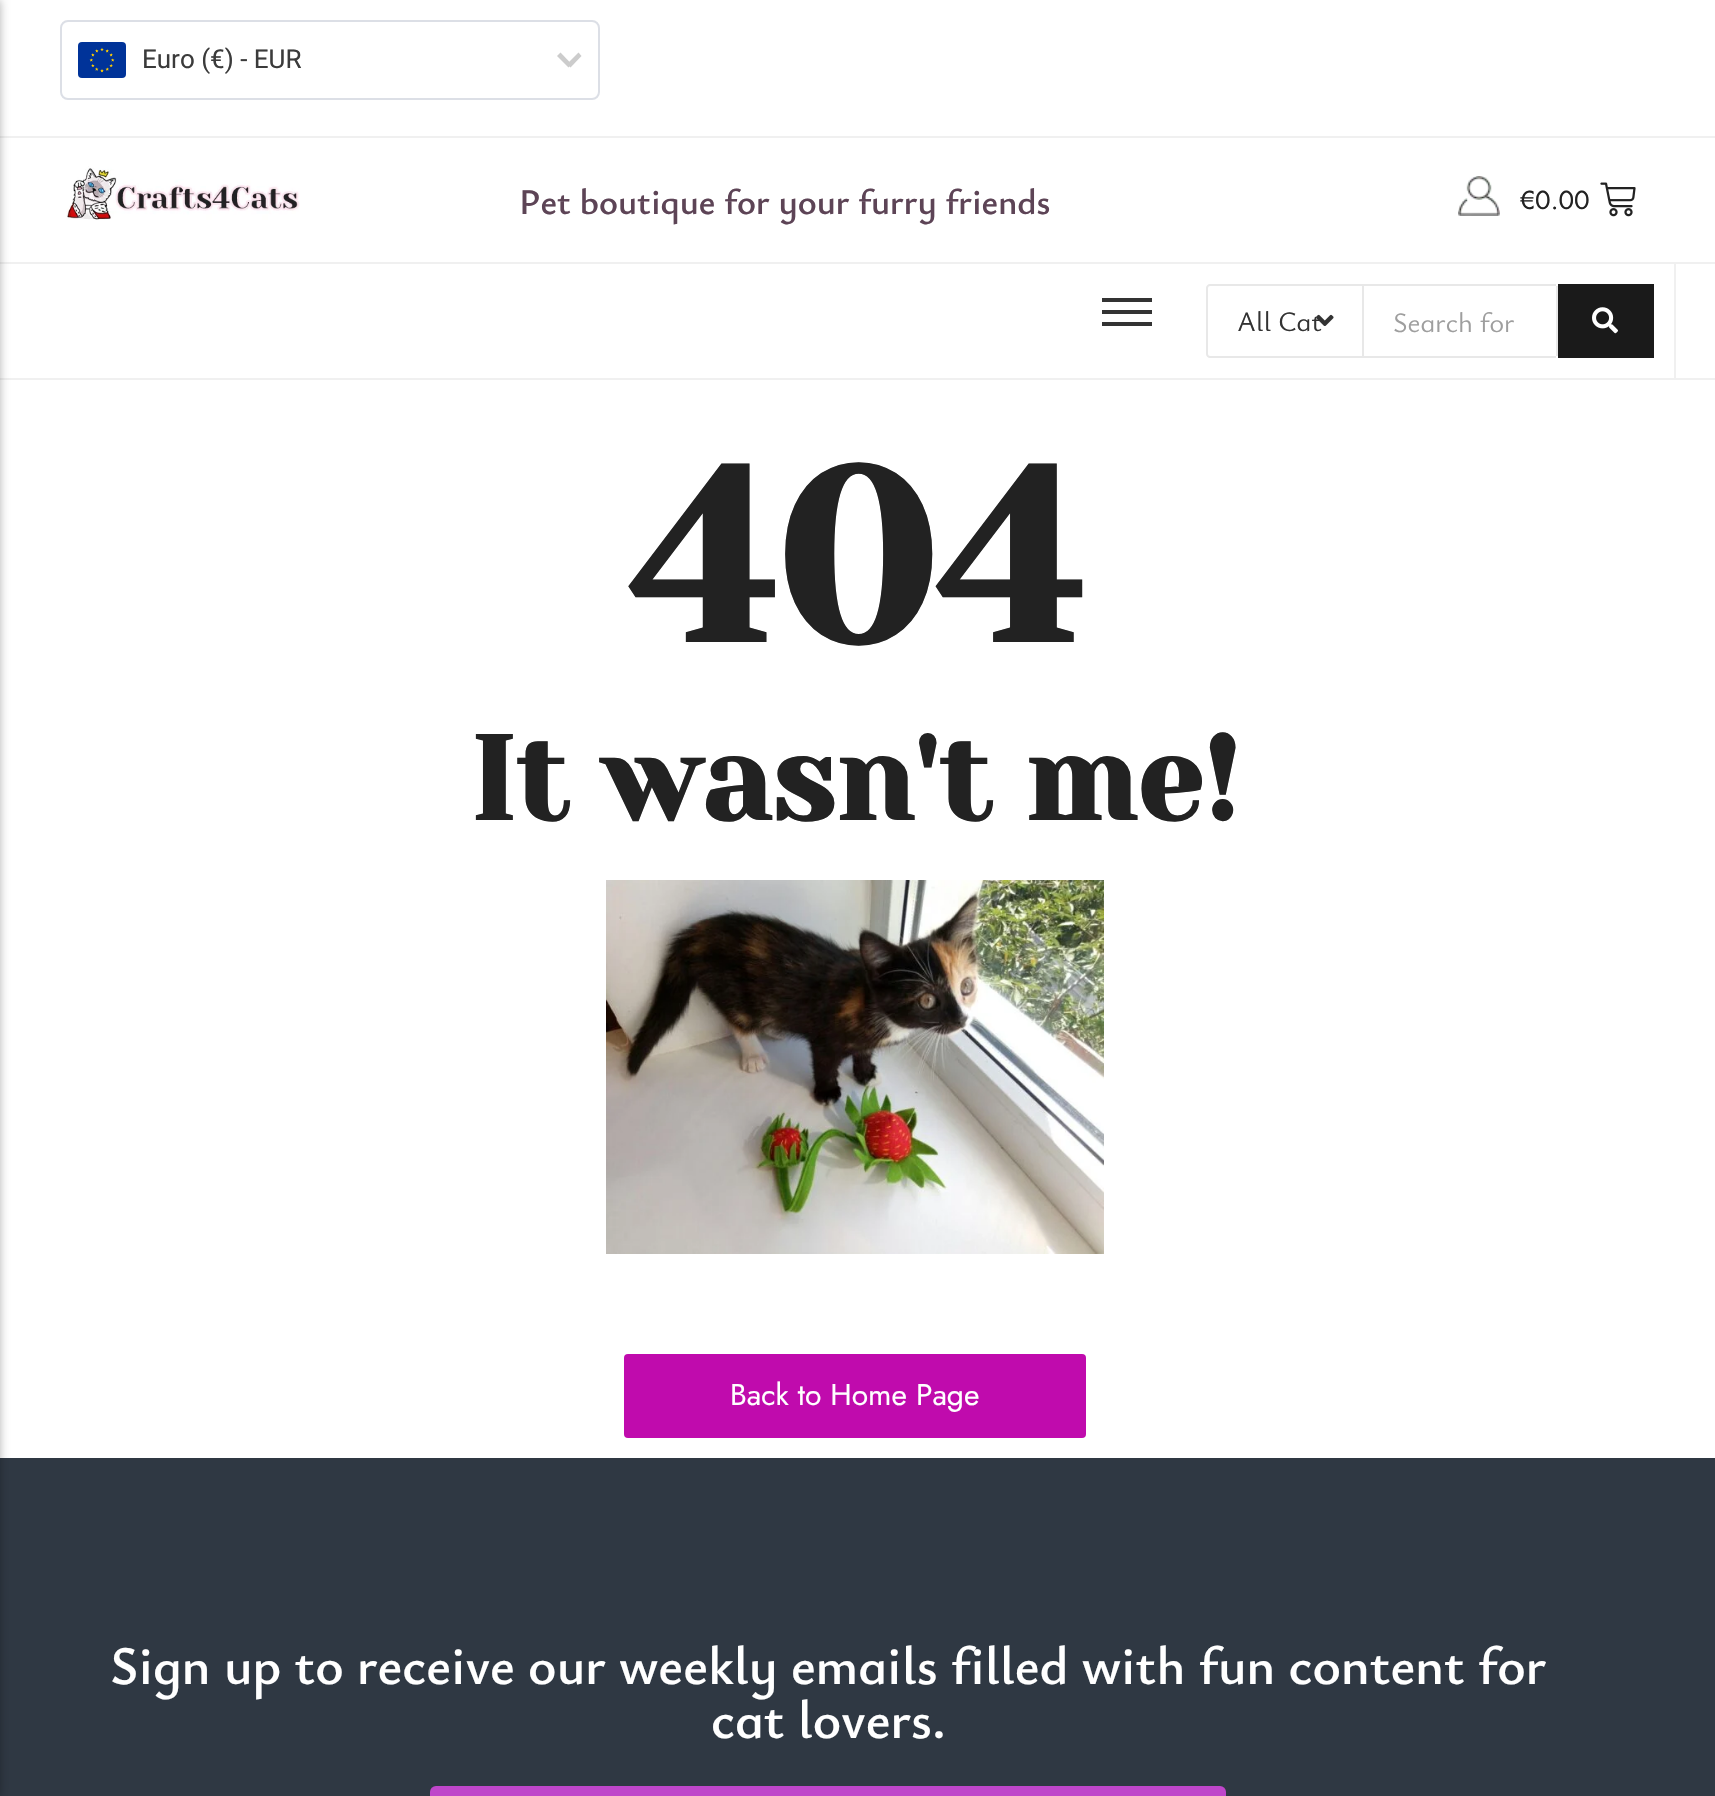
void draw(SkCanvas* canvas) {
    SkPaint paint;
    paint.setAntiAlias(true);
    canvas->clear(0xFFFFFFFF);
    paint.setColor(0xFFF0F0F0);
    canvas->drawRect(SkRect::MakeXYWH(0, 136, 1715, 2), paint);
    paint.setStyle(SkPaint::kStroke_Style);
    paint.setStrokeWidth(2);
    paint.setColor(0xFFDCDFE6);
    canvas->drawRoundRect(SkRect::MakeXYWH(61, 21, 538, 78), 7, 7, paint);
    canvas->drawImageRect(SkImages::DeferredFromEncodedData(SkData::MakeFromFileName("img1.png")), SkRect::MakeXYWH(78, 42, 48, 36), SkSamplingOptions());
    SkFont font1(fontMgr->matchFamilyStyle("Roboto", SkFontStyle::Normal()), 26);
    font1.setSubpixel(true);
    paint.setStyle(SkPaint::kFill_Style);
    paint.setColor(0xFF3B3B3B);
    canvas->drawString("Euro (€) - EUR", 142, 68, font1, paint);
    paint.setColor(0xFFCCCCCC);
    canvas->drawPath(SkPathBuilder().moveTo(557, 56).lineTo(560.5f, 52.5f).lineTo(571.5f, 64).lineTo(568.5f, 67.5f).close().detach(), paint);
    canvas->drawPath(SkPathBuilder().moveTo(578.5f, 52.5f).lineTo(581.5f, 56).lineTo(570.5f, 67.5f).lineTo(567, 64).close().detach(), paint);
    canvas->drawImageRect(SkImages::DeferredFromEncodedData(SkData::MakeFromFileName("img2.png")), SkRect::MakeXYWH(66, 166, 234, 54), SkSamplingOptions());
    SkFont font2(fontMgr->matchFamilyStyle("Ysabeau Infant", SkFontStyle(600, SkFontStyle::kNormal_Width, SkFontStyle::kUpright_Slant)), 36);
    font2.setSubpixel(true);
    paint.setColor(0xFF5D4456);
    canvas->drawString("Pet boutique for your furry friends", 519, 214, font2, paint);
    canvas->drawImageRect(SkImages::DeferredFromEncodedData(SkData::MakeFromFileName("img3.png")), SkRect::MakeXYWH(1458, 176, 42, 40), SkSamplingOptions());
    SkFont font3(fontMgr->matchFamilyStyle("Jost", SkFontStyle::Normal()), 26);
    font3.setSubpixel(true);
    paint.setColor(0xFF222222);
    canvas->drawString("€0.00", 1520, 209, font3, paint);
    canvas->drawImageRect(SkImages::DeferredFromEncodedData(SkData::MakeFromFileName("img4.png")), SkRect::MakeXYWH(1600, 182, 36, 35), SkSamplingOptions());
    paint.setColor(0xFFF0F0F0);
    canvas->drawRect(SkRect::MakeXYWH(0, 262, 1715, 2), paint);
    canvas->drawRect(SkRect::MakeXYWH(0, 378, 1715, 2), paint);
    paint.setColor(0xFF2F3843);
    canvas->drawRect(SkRect::MakeXYWH(0, 1458, 1715, 338), paint);
    paint.setColor(0x4D000000);
    paint.setMaskFilter(SkMaskFilter::MakeBlur(kNormal_SkBlurStyle, 5));
    canvas->drawRect(SkRect::MakeXYWH(-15, 0, 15, 1796), paint);
    paint.setMaskFilter(nullptr);
    paint.setColor(0xFF333333);
    canvas->drawRect(SkRect::MakeXYWH(1102, 298, 50, 4), paint);
    canvas->drawRect(SkRect::MakeXYWH(1102, 310, 50, 4), paint);
    canvas->drawRect(SkRect::MakeXYWH(1102, 322, 50, 4), paint);
    paint.setColor(0xFFF0F0F0);
    canvas->drawRect(SkRect::MakeXYWH(1674, 264, 2, 114), paint);
    paint.setStyle(SkPaint::kStroke_Style);
    paint.setColor(0xFFE8E8E8);
    canvas->drawPath(SkPathBuilder().moveTo(1210, 285).lineTo(1363, 285).lineTo(1363, 357).lineTo(1210, 357).cubicTo(1208.5f, 357, 1207, 355.5f, 1207, 354).lineTo(1207, 288).cubicTo(1207, 286.5f, 1208.5f, 285, 1210, 285).close().detach(), paint);
    SkFont font4(fontMgr->matchFamilyStyle("Ysabeau Infant", SkFontStyle::Normal()), 28);
    font4.setSubpixel(true);
    paint.setStyle(SkPaint::kFill_Style);
    paint.setColor(0xFF333333);
    canvas->drawString("All Cat", 1237, 331, font4, paint);
    canvas->drawImageRect(SkImages::DeferredFromEncodedData(SkData::MakeFromFileName("img5.png")), SkRect::MakeXYWH(1316, 314, 18, 12), SkSamplingOptions());
    paint.setColor(0xFFE8E8E8);
    canvas->drawRect(SkRect::MakeXYWH(1364, 284, 192, 2), paint);
    canvas->drawRect(SkRect::MakeXYWH(1556, 286, 2, 70), paint);
    canvas->drawRect(SkRect::MakeXYWH(1364, 356, 192, 2), paint);
    paint.setColor(0xFF9E9E9E);
    canvas->drawString("Search for", 1393, 332, font4, paint);
    paint.setColor(0xFF1A1A1A);
    canvas->drawRect(SkRect::MakeXYWH(1558, 284, 96, 74), paint);
    canvas->drawImageRect(SkImages::DeferredFromEncodedData(SkData::MakeFromFileName("img6.png")), SkRect::MakeXYWH(1592, 307, 26, 27), SkSamplingOptions());
    SkFont font5(fontMgr->matchFamilyStyle("Yeseva One", SkFontStyle::Bold()), 242);
    font5.setSubpixel(true);
    paint.setColor(0xFF222222);
    canvas->drawString("404", 629, 642, font5, paint);
    SkFont font6(fontMgr->matchFamilyStyle("Yeseva One", SkFontStyle::Bold()), 118);
    font6.setSubpixel(true);
    canvas->drawString("It wasn't me!", 470, 820, font6, paint);
    canvas->drawImageRect(SkImages::DeferredFromEncodedData(SkData::MakeFromFileName("img7.png")), SkRect::MakeXYWH(606, 880, 498, 374), SkSamplingOptions());
    paint.setColor(0xFFC00BAD);
    canvas->drawRoundRect(SkRect::MakeXYWH(624, 1354, 462, 84), 4, 4, paint);
    SkFont font7(fontMgr->matchFamilyStyle("Jost", SkFontStyle::Normal()), 30);
    font7.setSubpixel(true);
    paint.setColor(0xFFFFFFFF);
    canvas->drawString("Back to Home Page", 730, 1405, font7, paint);
    SkFont font8(fontMgr->matchFamilyStyle("Ysabeau Infant", SkFontStyle(600, SkFontStyle::kNormal_Width, SkFontStyle::kUpright_Slant)), 54);
    font8.setSubpixel(true);
    canvas->drawString("Sign up to receive our weekly emails", 110, 1684, font8, paint);
    canvas->drawString("filled with fun content for", 951, 1684, font8, paint);
    canvas->drawString("cat lovers.", 711, 1738, font8, paint);
    paint.setColor(0xFFBF46CA);
    canvas->drawRoundRect(SkRect::MakeXYWH(430, 1786, 796, 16), 6, 6, paint);
}
